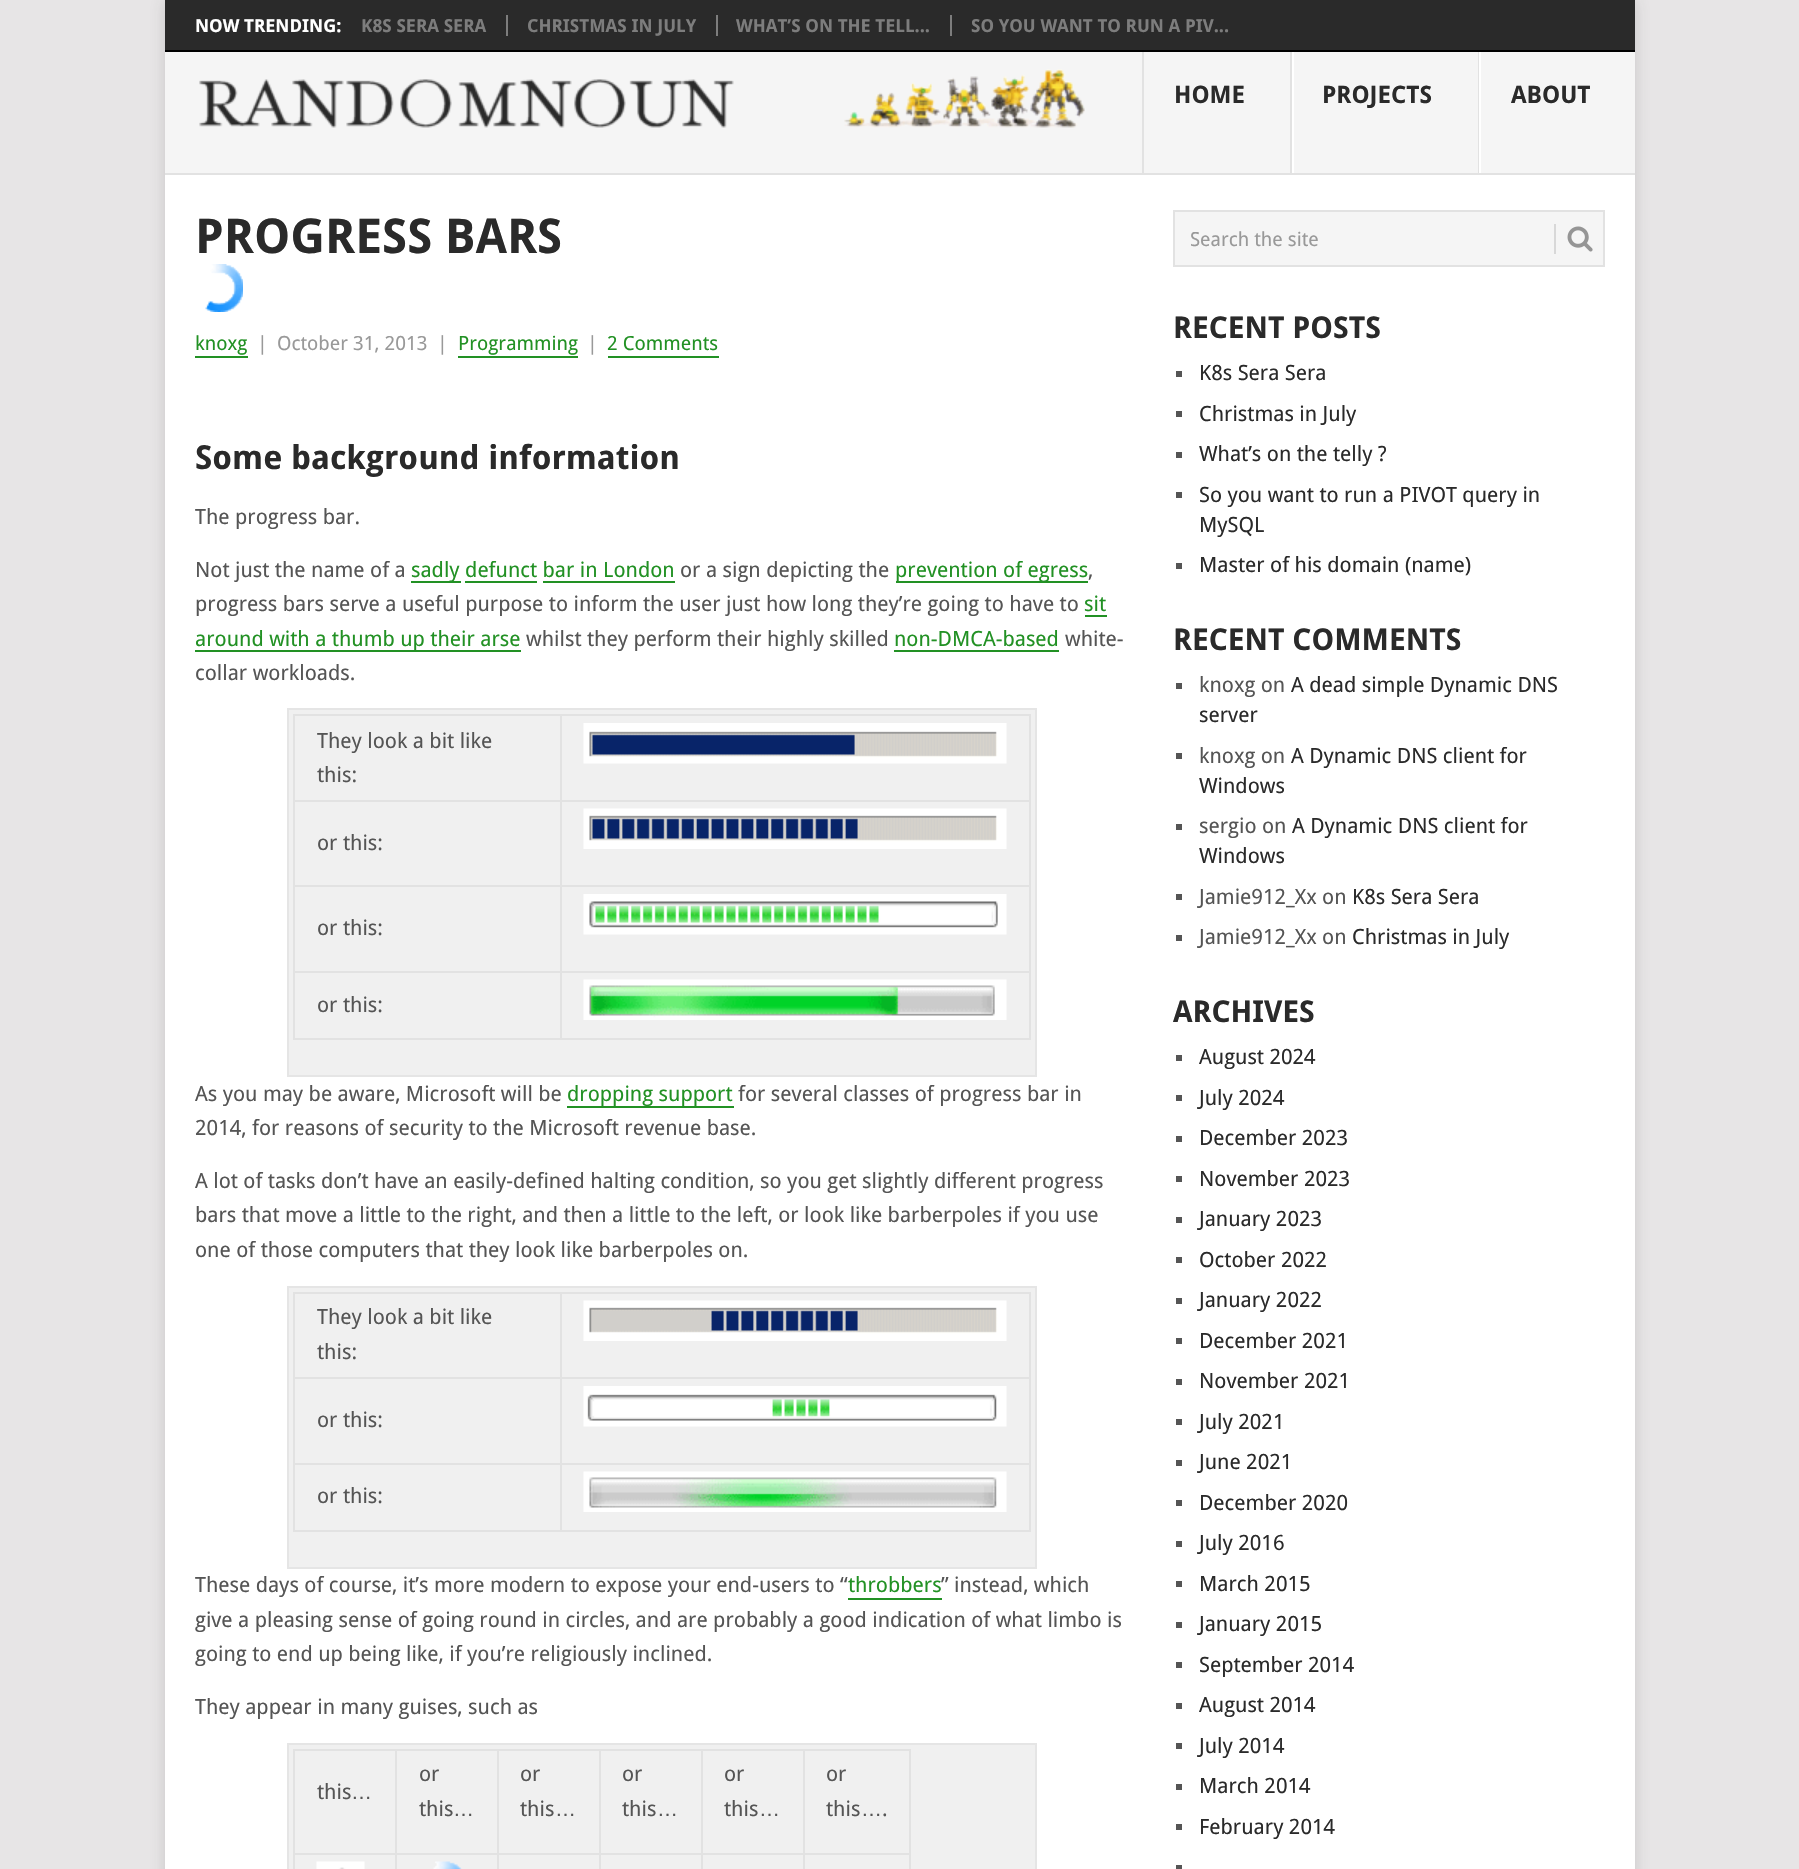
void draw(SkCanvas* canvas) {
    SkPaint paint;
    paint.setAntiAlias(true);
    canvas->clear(0xFFE7E5E6);
    paint.setColor(0x2B323232);
    paint.setMaskFilter(SkMaskFilter::MakeBlur(kNormal_SkBlurStyle, 7.5f));
    canvas->drawRect(SkRect::MakeXYWH(165, 0, 1470, 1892), paint);
    paint.setMaskFilter(nullptr);
    paint.setColor(0xFFFFFFFF);
    canvas->drawRect(SkRect::MakeXYWH(165, 175, 1470, 1694), paint);
    paint.setColor(0xFF2A2A2A);
    canvas->drawRect(SkRect::MakeXYWH(165, 0, 1470, 50), paint);
    paint.setColor(0xFFF5F5F5);
    canvas->drawRect(SkRect::MakeXYWH(165, 52, 1470, 121), paint);
    paint.setColor(0xFFE2E2E2);
    canvas->drawRect(SkRect::MakeXYWH(1290, 51, 2, 123), paint);
    canvas->drawRect(SkRect::MakeXYWH(1142, 51, 2, 123), paint);
    canvas->drawRect(SkRect::MakeXYWH(1478, 51, 1, 123), paint);
    paint.setColor(0xFFFFFFFF);
    canvas->drawRect(SkRect::MakeXYWH(1292, 51, 2, 123), paint);
    canvas->drawRect(SkRect::MakeXYWH(1479, 51, 2, 123), paint);
    paint.setColor(0xFF000000);
    canvas->drawRect(SkRect::MakeXYWH(165, 50, 1470, 2), paint);
    SkFont font1(fontMgr->matchFamilyStyle("Droid Sans", SkFontStyle::Bold()), 18);
    font1.setSubpixel(true);
    paint.setColor(0xFFFFFFFF);
    canvas->drawString("NOW TRENDING:", 195, 32, font1, paint);
    paint.setColor(0xFF7D7D7D);
    canvas->drawRect(SkRect::MakeXYWH(506, 15, 2, 21), paint);
    canvas->drawString("K8S SERA SERA", 361, 32, font1, paint);
    canvas->drawRect(SkRect::MakeXYWH(716, 15, 2, 21), paint);
    canvas->drawString("CHRISTMAS IN JULY", 527, 32, font1, paint);
    canvas->drawRect(SkRect::MakeXYWH(950, 15, 2, 21), paint);
    canvas->drawString("WHAT’S ON THE TELL...", 736, 32, font1, paint);
    canvas->drawString("SO YOU WANT TO RUN A PIV...", 971, 32, font1, paint);
    canvas->drawImageRect(SkImages::DeferredFromEncodedData(SkData::MakeFromFileName("img1.png")), SkRect::MakeXYWH(199, 69, 886, 59), SkSamplingOptions());
    SkFont font2(fontMgr->matchFamilyStyle("Droid Sans", SkFontStyle::Bold()), 24);
    font2.setSubpixel(true);
    paint.setColor(0xFF2A2A2A);
    canvas->drawString("HOME", 1174, 103, font2, paint);
    canvas->drawString("PROJECTS", 1322, 103, font2, paint);
    canvas->drawString("ABOUT", 1511, 103, font2, paint);
    paint.setColor(0xFFE2E2E2);
    canvas->drawRect(SkRect::MakeXYWH(165, 173, 1470, 2), paint);
    SkFont font3(fontMgr->matchFamilyStyle("Droid Sans", SkFontStyle::Bold()), 48);
    font3.setSubpixel(true);
    paint.setColor(0xFF2A2A2A);
    canvas->drawString("PROGRESS BARS", 195, 253, font3, paint);
    canvas->drawImageRect(SkImages::DeferredFromEncodedData(SkData::MakeFromFileName("img2.png")), SkRect::MakeXYWH(205, 264, 38, 48), SkSamplingOptions());
    SkFont font4(fontMgr->matchFamilyStyle("Droid Sans", SkFontStyle::Normal()), 19.5f);
    font4.setSubpixel(true);
    paint.setColor(0xFF229124);
    canvas->drawString("knoxg", 195, 350, font4, paint);
    canvas->drawRect(SkRect::MakeXYWH(195, 356, 53, 2), paint);
    paint.setColor(0xFF999999);
    canvas->drawString("|", 257, 350, font4, paint);
    canvas->drawString("October 31, 2013", 277, 350, font4, paint);
    canvas->drawString("|", 437, 350, font4, paint);
    paint.setColor(0xFF229124);
    canvas->drawString("Programming", 458, 350, font4, paint);
    canvas->drawRect(SkRect::MakeXYWH(458, 356, 120, 2), paint);
    paint.setColor(0xFF999999);
    canvas->drawString("|", 587, 350, font4, paint);
    paint.setColor(0xFF229124);
    canvas->drawString("2 Comments", 607, 350, font4, paint);
    canvas->drawRect(SkRect::MakeXYWH(608, 356, 111, 2), paint);
    SkFont font5(fontMgr->matchFamilyStyle("Droid Sans", SkFontStyle::Bold()), 33);
    font5.setSubpixel(true);
    paint.setColor(0xFF2A2A2A);
    canvas->drawString("Some background information", 195, 469, font5, paint);
    SkFont font6(fontMgr->matchFamilyStyle("Droid Sans", SkFontStyle::Normal()), 21);
    font6.setSubpixel(true);
    paint.setColor(0xFF555555);
    canvas->drawString("The progress bar.", 195, 524, font6, paint);
    canvas->drawString("Not just the name of a", 195, 577, font6, paint);
    paint.setColor(0xFF229124);
    canvas->drawRect(SkRect::MakeXYWH(411, 581, 50, 2), paint);
    canvas->drawString("sadly defunct bar in London", 411, 577, font6, paint);
    paint.setColor(0xFF555555);
    canvas->drawString("or a sign depicting the", 680, 577, font6, paint);
    paint.setColor(0xFF229124);
    canvas->drawRect(SkRect::MakeXYWH(896, 581, 192, 2), paint);
    canvas->drawString("prevention of egress", 895, 577, font6, paint);
    paint.setColor(0xFF555555);
    canvas->drawString(",", 1088, 577, font6, paint);
    paint.setColor(0xFF229124);
    canvas->drawRect(SkRect::MakeXYWH(465, 581, 72, 2), paint);
    canvas->drawRect(SkRect::MakeXYWH(543, 581, 132, 2), paint);
    paint.setColor(0xFF555555);
    canvas->drawString("progress bars serve a useful purpose to inform the user just how long they’re going to have to", 195, 611, font6, paint);
    paint.setColor(0xFF229124);
    canvas->drawString("sit", 1084, 611, font6, paint);
    canvas->drawRect(SkRect::MakeXYWH(1085, 615, 22, 2), paint);
    canvas->drawRect(SkRect::MakeXYWH(195, 650, 326, 2), paint);
    canvas->drawString("around with a thumb up their arse", 195, 646, font6, paint);
    paint.setColor(0xFF555555);
    canvas->drawString("whilst they perform their highly skilled", 526, 646, font6, paint);
    paint.setColor(0xFF229124);
    canvas->drawString("non-DMCA-based", 894, 646, font6, paint);
    canvas->drawRect(SkRect::MakeXYWH(894, 650, 165, 2), paint);
    paint.setColor(0xFF555555);
    canvas->drawString("white-", 1065, 646, font6, paint);
    canvas->drawString("collar workloads.", 195, 680, font6, paint);
    paint.setColor(0xFFF0F0F0);
    canvas->drawRect(SkRect::MakeXYWH(288, 709, 748, 367), paint);
    paint.setStyle(SkPaint::kStroke_Style);
    paint.setStrokeWidth(2);
    paint.setColor(0xFFE5E5E5);
    canvas->drawRect(SkRect::MakeXYWH(288, 709, 748, 367), paint);
    paint.setStyle(SkPaint::kFill_Style);
    paint.setColor(0xFFE2E2E2);
    canvas->drawRect(SkRect::MakeXYWH(560, 714, 471, 2), paint);
    canvas->drawRect(SkRect::MakeXYWH(560, 800, 471, 2), paint);
    canvas->drawRect(SkRect::MakeXYWH(560, 885, 471, 2), paint);
    canvas->drawRect(SkRect::MakeXYWH(560, 971, 471, 2), paint);
    canvas->drawRect(SkRect::MakeXYWH(1029, 971, 2, 69), paint);
    canvas->drawRect(SkRect::MakeXYWH(560, 1038, 471, 2), paint);
    canvas->drawRect(SkRect::MakeXYWH(560, 971, 2, 69), paint);
    canvas->drawRect(SkRect::MakeXYWH(293, 971, 268, 2), paint);
    canvas->drawRect(SkRect::MakeXYWH(560, 885, 2, 87), paint);
    canvas->drawRect(SkRect::MakeXYWH(293, 885, 268, 2), paint);
    canvas->drawRect(SkRect::MakeXYWH(560, 800, 2, 87), paint);
    canvas->drawRect(SkRect::MakeXYWH(293, 800, 268, 2), paint);
    canvas->drawRect(SkRect::MakeXYWH(560, 714, 2, 87), paint);
    canvas->drawRect(SkRect::MakeXYWH(293, 714, 268, 2), paint);
    canvas->drawRect(SkRect::MakeXYWH(293, 1038, 268, 2), paint);
    canvas->drawRect(SkRect::MakeXYWH(293, 971, 2, 69), paint);
    canvas->drawRect(SkRect::MakeXYWH(293, 885, 2, 87), paint);
    canvas->drawRect(SkRect::MakeXYWH(293, 800, 2, 87), paint);
    canvas->drawRect(SkRect::MakeXYWH(293, 714, 2, 87), paint);
    paint.setColor(0xFF555555);
    canvas->drawString("They look a bit like", 317, 748, font6, paint);
    canvas->drawString("this:", 317, 782, font6, paint);
    paint.setColor(0xFFE2E2E2);
    canvas->drawRect(SkRect::MakeXYWH(1029, 885, 2, 87), paint);
    canvas->drawRect(SkRect::MakeXYWH(1029, 800, 2, 87), paint);
    canvas->drawRect(SkRect::MakeXYWH(1029, 714, 2, 87), paint);
    canvas->drawImageRect(SkImages::DeferredFromEncodedData(SkData::MakeFromFileName("img3.png")), SkRect::MakeXYWH(583, 723, 424, 41), SkSamplingOptions());
    paint.setColor(0xFF555555);
    canvas->drawString("or this:", 317, 850, font6, paint);
    canvas->drawImageRect(SkImages::DeferredFromEncodedData(SkData::MakeFromFileName("img4.png")), SkRect::MakeXYWH(583, 808, 424, 41), SkSamplingOptions());
    canvas->drawString("or this:", 317, 935, font6, paint);
    canvas->drawImageRect(SkImages::DeferredFromEncodedData(SkData::MakeFromFileName("img5.png")), SkRect::MakeXYWH(583, 894, 424, 41), SkSamplingOptions());
    canvas->drawString("or this:", 317, 1012, font6, paint);
    canvas->drawImageRect(SkImages::DeferredFromEncodedData(SkData::MakeFromFileName("img6.png")), SkRect::MakeXYWH(583, 979, 424, 41), SkSamplingOptions());
    canvas->drawString("As you may be aware, Microsoft will be", 195, 1101, font6, paint);
    paint.setColor(0xFF229124);
    canvas->drawRect(SkRect::MakeXYWH(567, 1106, 167, 2), paint);
    canvas->drawString("dropping support", 567, 1101, font6, paint);
    paint.setColor(0xFF555555);
    canvas->drawString("for several classes of progress bar in", 738, 1101, font6, paint);
    canvas->drawString("2014, for reasons of security to the Microsoft revenue base.", 195, 1135, font6, paint);
    canvas->drawString("A lot of tasks don’t have an easily-defined halting condition, so you get slightly different progress", 195, 1188, font6, paint);
    canvas->drawString("bars that move a little to the right, and then a little to the left, or look like barberpoles if you use", 195, 1222, font6, paint);
    canvas->drawString("one of those computers that they look like barberpoles on.", 195, 1257, font6, paint);
    paint.setColor(0xFFF0F0F0);
    canvas->drawRect(SkRect::MakeXYWH(288, 1287, 748, 281), paint);
    paint.setStyle(SkPaint::kStroke_Style);
    paint.setColor(0xFFE5E5E5);
    canvas->drawRect(SkRect::MakeXYWH(288, 1287, 748, 281), paint);
    paint.setStyle(SkPaint::kFill_Style);
    paint.setColor(0xFFE2E2E2);
    canvas->drawRect(SkRect::MakeXYWH(560, 1292, 471, 2), paint);
    canvas->drawRect(SkRect::MakeXYWH(560, 1377, 471, 2), paint);
    canvas->drawRect(SkRect::MakeXYWH(560, 1463, 471, 2), paint);
    canvas->drawRect(SkRect::MakeXYWH(1029, 1463, 2, 69), paint);
    canvas->drawRect(SkRect::MakeXYWH(560, 1530, 471, 2), paint);
    canvas->drawRect(SkRect::MakeXYWH(560, 1463, 2, 69), paint);
    canvas->drawRect(SkRect::MakeXYWH(293, 1463, 268, 2), paint);
    canvas->drawRect(SkRect::MakeXYWH(560, 1377, 2, 87), paint);
    canvas->drawRect(SkRect::MakeXYWH(293, 1377, 268, 2), paint);
    canvas->drawRect(SkRect::MakeXYWH(560, 1292, 2, 87), paint);
    canvas->drawRect(SkRect::MakeXYWH(293, 1292, 268, 2), paint);
    canvas->drawRect(SkRect::MakeXYWH(293, 1530, 268, 2), paint);
    canvas->drawRect(SkRect::MakeXYWH(293, 1463, 2, 69), paint);
    canvas->drawRect(SkRect::MakeXYWH(293, 1377, 2, 87), paint);
    canvas->drawRect(SkRect::MakeXYWH(293, 1292, 2, 87), paint);
    paint.setColor(0xFF555555);
    canvas->drawString("They look a bit like", 317, 1324, font6, paint);
    canvas->drawString("this:", 317, 1359, font6, paint);
    paint.setColor(0xFFE2E2E2);
    canvas->drawRect(SkRect::MakeXYWH(1029, 1377, 2, 87), paint);
    canvas->drawRect(SkRect::MakeXYWH(1029, 1292, 2, 87), paint);
    canvas->drawImageRect(SkImages::DeferredFromEncodedData(SkData::MakeFromFileName("img7.png")), SkRect::MakeXYWH(583, 1300, 424, 41), SkSamplingOptions());
    paint.setColor(0xFF555555);
    canvas->drawString("or this:", 317, 1427, font6, paint);
    canvas->drawImageRect(SkImages::DeferredFromEncodedData(SkData::MakeFromFileName("img8.png")), SkRect::MakeXYWH(583, 1386, 424, 41), SkSamplingOptions());
    canvas->drawString("or this:", 317, 1503, font6, paint);
    canvas->drawImageRect(SkImages::DeferredFromEncodedData(SkData::MakeFromFileName("img9.png")), SkRect::MakeXYWH(583, 1471, 424, 41), SkSamplingOptions());
    canvas->drawString("These days of course, it’s more modern to expose your end-users to “", 195, 1592, font6, paint);
    paint.setColor(0xFF229124);
    canvas->drawString("throbbers", 848, 1592, font6, paint);
    canvas->drawRect(SkRect::MakeXYWH(848, 1598, 94, 2), paint);
    paint.setColor(0xFF555555);
    canvas->drawString("” instead, which", 941, 1592, font6, paint);
    canvas->drawString("give a pleasing sense of going round in circles, and are probably a good indication of what limbo is", 195, 1627, font6, paint);
    canvas->drawString("going to end up being like, if you’re religiously inclined.", 195, 1661, font6, paint);
    canvas->drawString("They appear in many guises, such as", 195, 1714, font6, paint);
    paint.setColor(0xFFF0F0F0);
    canvas->drawRect(SkRect::MakeXYWH(288, 1744, 748, 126), paint);
    paint.setStyle(SkPaint::kStroke_Style);
    paint.setColor(0xFFE5E5E5);
    canvas->drawRect(SkRect::MakeXYWH(288, 1744, 748, 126), paint);
    paint.setStyle(SkPaint::kFill_Style);
    paint.setColor(0xFFE2E2E2);
    canvas->drawRect(SkRect::MakeXYWH(803, 1749, 108, 2), paint);
    canvas->drawRect(SkRect::MakeXYWH(803, 1853, 108, 2), paint);
    canvas->drawRect(SkRect::MakeXYWH(803, 1853, 2, 16), paint);
    canvas->drawRect(SkRect::MakeXYWH(701, 1853, 103, 2), paint);
    canvas->drawRect(SkRect::MakeXYWH(803, 1749, 2, 105), paint);
    canvas->drawRect(SkRect::MakeXYWH(701, 1749, 103, 2), paint);
    canvas->drawRect(SkRect::MakeXYWH(701, 1853, 2, 16), paint);
    canvas->drawRect(SkRect::MakeXYWH(599, 1853, 103, 2), paint);
    canvas->drawRect(SkRect::MakeXYWH(701, 1749, 2, 105), paint);
    canvas->drawRect(SkRect::MakeXYWH(599, 1749, 103, 2), paint);
    canvas->drawRect(SkRect::MakeXYWH(599, 1853, 2, 16), paint);
    canvas->drawRect(SkRect::MakeXYWH(497, 1853, 103, 2), paint);
    canvas->drawRect(SkRect::MakeXYWH(599, 1749, 2, 105), paint);
    canvas->drawRect(SkRect::MakeXYWH(497, 1749, 103, 2), paint);
    canvas->drawRect(SkRect::MakeXYWH(497, 1853, 2, 16), paint);
    canvas->drawRect(SkRect::MakeXYWH(395, 1853, 103, 2), paint);
    canvas->drawRect(SkRect::MakeXYWH(497, 1749, 2, 105), paint);
    canvas->drawRect(SkRect::MakeXYWH(395, 1749, 103, 2), paint);
    canvas->drawRect(SkRect::MakeXYWH(395, 1853, 2, 16), paint);
    canvas->drawRect(SkRect::MakeXYWH(293, 1853, 103, 2), paint);
    canvas->drawRect(SkRect::MakeXYWH(395, 1749, 2, 105), paint);
    canvas->drawRect(SkRect::MakeXYWH(293, 1749, 103, 2), paint);
    canvas->drawRect(SkRect::MakeXYWH(293, 1853, 2, 16), paint);
    canvas->drawRect(SkRect::MakeXYWH(293, 1749, 2, 105), paint);
    paint.setColor(0xFF555555);
    canvas->drawString("this", 317, 1799, font6, paint);
    SkFont font7(fontMgr->matchFamilyStyle("Liberation Sans", SkFontStyle::Normal()), 21);
    font7.setSubpixel(true);
    canvas->drawString("…", 351, 1799, font7, paint);
    canvas->drawString("or", 419, 1781, font6, paint);
    canvas->drawString("this", 419, 1816, font6, paint);
    canvas->drawString("…", 453, 1816, font7, paint);
    canvas->drawString("or", 520, 1781, font6, paint);
    canvas->drawString("this", 520, 1816, font6, paint);
    canvas->drawString("…", 555, 1816, font7, paint);
    canvas->drawString("or", 622, 1781, font6, paint);
    canvas->drawString("this", 622, 1816, font6, paint);
    canvas->drawString("…", 657, 1816, font7, paint);
    canvas->drawString("or", 724, 1781, font6, paint);
    canvas->drawString("this", 724, 1816, font6, paint);
    canvas->drawString("…", 759, 1816, font7, paint);
    paint.setColor(0xFFE2E2E2);
    canvas->drawRect(SkRect::MakeXYWH(909, 1853, 2, 16), paint);
    canvas->drawRect(SkRect::MakeXYWH(909, 1749, 2, 105), paint);
    paint.setColor(0xFF555555);
    canvas->drawString("or", 826, 1781, font6, paint);
    canvas->drawString("this", 826, 1816, font6, paint);
    canvas->drawString("…", 861, 1816, font7, paint);
    canvas->drawString(".", 882, 1816, font6, paint);
    canvas->drawImageRect(SkImages::DeferredFromEncodedData(SkData::MakeFromFileName("img10.png")), SkRect::MakeXYWH(316, 1861, 49, 8), SkSamplingOptions());
    canvas->drawImageRect(SkImages::DeferredFromEncodedData(SkData::MakeFromFileName("img11.png")), SkRect::MakeXYWH(433, 1861, 29, 8), SkSamplingOptions());
    paint.setColor(0xFFF5F5F5);
    canvas->drawRect(SkRect::MakeXYWH(1174, 211, 430, 55), paint);
    paint.setStyle(SkPaint::kStroke_Style);
    paint.setColor(0xFFE2E2E2);
    canvas->drawRect(SkRect::MakeXYWH(1174, 211, 430, 55), paint);
    paint.setStyle(SkPaint::kFill_Style);
    paint.setColor(0xFF999999);
    canvas->drawString("Search the site", 1190, 246, font4, paint);
    paint.setColor(0xFFD8D8D8);
    canvas->drawRect(SkRect::MakeXYWH(1554, 224, 2, 30), paint);
    canvas->drawImageRect(SkImages::DeferredFromEncodedData(SkData::MakeFromFileName("img12.png")), SkRect::MakeXYWH(1567, 226, 26, 26), SkSamplingOptions());
    SkFont font8(fontMgr->matchFamilyStyle("Droid Sans", SkFontStyle::Bold()), 30);
    font8.setSubpixel(true);
    paint.setColor(0xFF2A2A2A);
    canvas->drawString("RECENT POSTS", 1173, 338, font8, paint);
    paint.setColor(0xFF555555);
    canvas->drawRect(SkRect::MakeXYWH(1176, 371, 6, 6), paint);
    paint.setColor(0xFF2A2A2A);
    canvas->drawString("K8s Sera Sera", 1199, 380, font6, paint);
    paint.setColor(0xFF555555);
    canvas->drawRect(SkRect::MakeXYWH(1176, 411, 6, 6), paint);
    paint.setColor(0xFF2A2A2A);
    canvas->drawString("Christmas in July", 1199, 421, font6, paint);
    paint.setColor(0xFF555555);
    canvas->drawRect(SkRect::MakeXYWH(1176, 452, 6, 6), paint);
    paint.setColor(0xFF2A2A2A);
    canvas->drawString("What’s on the telly ?", 1199, 461, font6, paint);
    paint.setColor(0xFF555555);
    canvas->drawRect(SkRect::MakeXYWH(1176, 492, 6, 6), paint);
    paint.setColor(0xFF2A2A2A);
    canvas->drawString("So you want to run a PIVOT query in", 1199, 502, font6, paint);
    canvas->drawString("MySQL", 1199, 532, font6, paint);
    paint.setColor(0xFF555555);
    canvas->drawRect(SkRect::MakeXYWH(1176, 563, 6, 6), paint);
    paint.setColor(0xFF2A2A2A);
    canvas->drawString("Master of his domain (name)", 1199, 572, font6, paint);
    canvas->drawString("RECENT COMMENTS", 1173, 650, font8, paint);
    paint.setColor(0xFF555555);
    canvas->drawRect(SkRect::MakeXYWH(1176, 683, 6, 6), paint);
    canvas->drawString("knoxg on", 1199, 692, font6, paint);
    paint.setColor(0xFF2A2A2A);
    canvas->drawString("A dead simple Dynamic DNS", 1291, 692, font6, paint);
    canvas->drawString("server", 1199, 722, font6, paint);
    paint.setColor(0xFF555555);
    canvas->drawRect(SkRect::MakeXYWH(1176, 753, 6, 6), paint);
    canvas->drawString("knoxg on", 1199, 763, font6, paint);
    paint.setColor(0xFF2A2A2A);
    canvas->drawString("A Dynamic DNS client for", 1291, 763, font6, paint);
    canvas->drawString("Windows", 1199, 793, font6, paint);
    paint.setColor(0xFF555555);
    canvas->drawRect(SkRect::MakeXYWH(1176, 824, 6, 6), paint);
    canvas->drawString("sergio on", 1199, 833, font6, paint);
    paint.setColor(0xFF2A2A2A);
    canvas->drawString("A Dynamic DNS client for", 1292, 833, font6, paint);
    canvas->drawString("Windows", 1199, 863, font6, paint);
    paint.setColor(0xFF555555);
    canvas->drawRect(SkRect::MakeXYWH(1176, 894, 6, 6), paint);
    canvas->drawString("Jamie912_Xx on", 1199, 904, font6, paint);
    paint.setColor(0xFF2A2A2A);
    canvas->drawString("K8s Sera Sera", 1352, 904, font6, paint);
    paint.setColor(0xFF555555);
    canvas->drawRect(SkRect::MakeXYWH(1176, 935, 6, 6), paint);
    canvas->drawString("Jamie912_Xx on", 1199, 944, font6, paint);
    paint.setColor(0xFF2A2A2A);
    canvas->drawString("Christmas in July", 1352, 944, font6, paint);
    canvas->drawString("ARCHIVES", 1173, 1022, font8, paint);
    paint.setColor(0xFF555555);
    canvas->drawRect(SkRect::MakeXYWH(1176, 1055, 6, 6), paint);
    paint.setColor(0xFF2A2A2A);
    canvas->drawString("August 2024", 1199, 1064, font6, paint);
    paint.setColor(0xFF555555);
    canvas->drawRect(SkRect::MakeXYWH(1176, 1095, 6, 6), paint);
    paint.setColor(0xFF2A2A2A);
    canvas->drawString("July 2024", 1199, 1105, font6, paint);
    paint.setColor(0xFF555555);
    canvas->drawRect(SkRect::MakeXYWH(1176, 1136, 6, 6), paint);
    paint.setColor(0xFF2A2A2A);
    canvas->drawString("December 2023", 1199, 1145, font6, paint);
    paint.setColor(0xFF555555);
    canvas->drawRect(SkRect::MakeXYWH(1176, 1176, 6, 6), paint);
    paint.setColor(0xFF2A2A2A);
    canvas->drawString("November 2023", 1199, 1186, font6, paint);
    paint.setColor(0xFF555555);
    canvas->drawRect(SkRect::MakeXYWH(1176, 1217, 6, 6), paint);
    paint.setColor(0xFF2A2A2A);
    canvas->drawString("January 2023", 1199, 1226, font6, paint);
    paint.setColor(0xFF555555);
    canvas->drawRect(SkRect::MakeXYWH(1176, 1257, 6, 6), paint);
    paint.setColor(0xFF2A2A2A);
    canvas->drawString("October 2022", 1199, 1267, font6, paint);
    paint.setColor(0xFF555555);
    canvas->drawRect(SkRect::MakeXYWH(1176, 1298, 6, 6), paint);
    paint.setColor(0xFF2A2A2A);
    canvas->drawString("January 2022", 1199, 1307, font6, paint);
    paint.setColor(0xFF555555);
    canvas->drawRect(SkRect::MakeXYWH(1176, 1338, 6, 6), paint);
    paint.setColor(0xFF2A2A2A);
    canvas->drawString("December 2021", 1199, 1348, font6, paint);
    paint.setColor(0xFF555555);
    canvas->drawRect(SkRect::MakeXYWH(1176, 1379, 6, 6), paint);
    paint.setColor(0xFF2A2A2A);
    canvas->drawString("November 2021", 1199, 1388, font6, paint);
    paint.setColor(0xFF555555);
    canvas->drawRect(SkRect::MakeXYWH(1176, 1419, 6, 6), paint);
    paint.setColor(0xFF2A2A2A);
    canvas->drawString("July 2021", 1199, 1429, font6, paint);
    paint.setColor(0xFF555555);
    canvas->drawRect(SkRect::MakeXYWH(1176, 1460, 6, 6), paint);
    paint.setColor(0xFF2A2A2A);
    canvas->drawString("June 2021", 1199, 1469, font6, paint);
    paint.setColor(0xFF555555);
    canvas->drawRect(SkRect::MakeXYWH(1176, 1500, 6, 6), paint);
    paint.setColor(0xFF2A2A2A);
    canvas->drawString("December 2020", 1199, 1510, font6, paint);
    paint.setColor(0xFF555555);
    canvas->drawRect(SkRect::MakeXYWH(1176, 1541, 6, 6), paint);
    paint.setColor(0xFF2A2A2A);
    canvas->drawString("July 2016", 1199, 1550, font6, paint);
    paint.setColor(0xFF555555);
    canvas->drawRect(SkRect::MakeXYWH(1176, 1581, 6, 6), paint);
    paint.setColor(0xFF2A2A2A);
    canvas->drawString("March 2015", 1199, 1591, font6, paint);
    paint.setColor(0xFF555555);
    canvas->drawRect(SkRect::MakeXYWH(1176, 1622, 6, 6), paint);
    paint.setColor(0xFF2A2A2A);
    canvas->drawString("January 2015", 1199, 1631, font6, paint);
    paint.setColor(0xFF555555);
    canvas->drawRect(SkRect::MakeXYWH(1176, 1662, 6, 6), paint);
    paint.setColor(0xFF2A2A2A);
    canvas->drawString("September 2014", 1199, 1672, font6, paint);
    paint.setColor(0xFF555555);
    canvas->drawRect(SkRect::MakeXYWH(1176, 1703, 6, 6), paint);
    paint.setColor(0xFF2A2A2A);
    canvas->drawString("August 2014", 1199, 1712, font6, paint);
    paint.setColor(0xFF555555);
    canvas->drawRect(SkRect::MakeXYWH(1176, 1743, 6, 6), paint);
    paint.setColor(0xFF2A2A2A);
    canvas->drawString("July 2014", 1199, 1753, font6, paint);
    paint.setColor(0xFF555555);
    canvas->drawRect(SkRect::MakeXYWH(1176, 1784, 6, 6), paint);
    paint.setColor(0xFF2A2A2A);
    canvas->drawString("March 2014", 1199, 1793, font6, paint);
    paint.setColor(0xFF555555);
    canvas->drawRect(SkRect::MakeXYWH(1176, 1824, 6, 6), paint);
    paint.setColor(0xFF2A2A2A);
    canvas->drawString("February 2014", 1199, 1834, font6, paint);
    paint.setColor(0xFF555555);
    canvas->drawRect(SkRect::MakeXYWH(1176, 1865, 6, 4), paint);
}
